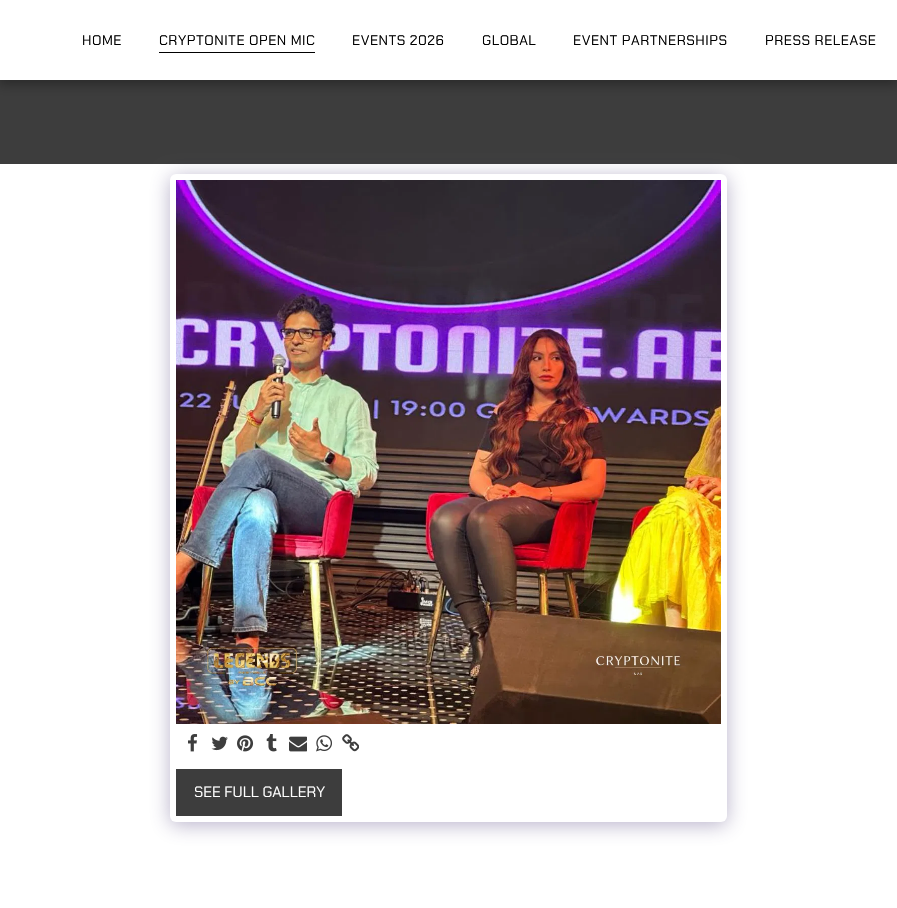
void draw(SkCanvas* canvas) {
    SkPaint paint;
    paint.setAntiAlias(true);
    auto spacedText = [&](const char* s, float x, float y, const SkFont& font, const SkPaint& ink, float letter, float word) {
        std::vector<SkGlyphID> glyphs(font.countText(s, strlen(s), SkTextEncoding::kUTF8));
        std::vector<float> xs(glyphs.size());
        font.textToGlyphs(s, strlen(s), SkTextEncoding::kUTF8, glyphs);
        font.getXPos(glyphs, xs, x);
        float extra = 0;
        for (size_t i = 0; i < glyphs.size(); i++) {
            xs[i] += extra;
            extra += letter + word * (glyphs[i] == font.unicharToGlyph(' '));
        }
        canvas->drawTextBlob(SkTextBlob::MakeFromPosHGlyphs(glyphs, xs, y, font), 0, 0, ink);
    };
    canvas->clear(0xFFFFFFFF);
    paint.setColor(0xFF3D3D3D);
    canvas->drawRect(SkRect::MakeXYWH(0, 80, 897, 84), paint);
    paint.setColor(0x59000000);
    paint.setMaskFilter(SkMaskFilter::MakeBlur(kNormal_SkBlurStyle, 6));
    canvas->drawRect(SkRect::MakeXYWH(-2, 0, 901, 84), paint);
    paint.setMaskFilter(nullptr);
    paint.setColor(0xFFFFFFFF);
    canvas->drawRect(SkRect::MakeXYWH(0, 0, 897, 80), paint);
    SkFont font1(fontMgr->matchFamilyStyle("Chakra Petch", SkFontStyle::Normal()), 14);
    font1.setSubpixel(true);
    paint.setColor(0xFF000000);
    spacedText("HOME", 82, 45, font1, paint, 0.5f, 0);
    spacedText("CRYPTONITE OPEN MIC", 159, 45, font1, paint, 0.5f, 0);
    canvas->drawRect(SkRect::MakeXYWH(159, 52, 156, 1), paint);
    spacedText("EVENTS 2026", 352, 45, font1, paint, 0.5f, 0);
    spacedText("GLOBAL", 482, 45, font1, paint, 0.5f, 0);
    spacedText("EVENT PARTNERSHIPS", 573, 45, font1, paint, 0.5f, 0);
    spacedText("PRESS RELEASE", 765, 45, font1, paint, 0.5f, 0);
    paint.setColor(0x664D3F7A);
    paint.setMaskFilter(SkMaskFilter::MakeBlur(kNormal_SkBlurStyle, 10));
    canvas->drawRoundRect(SkRect::MakeXYWH(170, 177, 557, 648), 6, 6, paint);
    paint.setMaskFilter(nullptr);
    paint.setColor(0xFFFFFFFF);
    canvas->drawRoundRect(SkRect::MakeXYWH(170, 174, 557, 648), 6, 6, paint);
    canvas->drawImageRect(SkImages::DeferredFromEncodedData(SkData::MakeFromFileName("img1.png")), SkRect::MakeXYWH(176, 180, 545, 544), SkSamplingOptions());
    canvas->drawImageRect(SkImages::DeferredFromEncodedData(SkData::MakeFromFileName("img2.png")), SkRect::MakeXYWH(188, 734, 10, 18), SkSamplingOptions());
    canvas->drawImageRect(SkImages::DeferredFromEncodedData(SkData::MakeFromFileName("img3.png")), SkRect::MakeXYWH(211, 736, 17, 15), SkSamplingOptions());
    canvas->drawImageRect(SkImages::DeferredFromEncodedData(SkData::MakeFromFileName("img4.png")), SkRect::MakeXYWH(237, 735, 17, 17), SkSamplingOptions());
    canvas->drawImageRect(SkImages::DeferredFromEncodedData(SkData::MakeFromFileName("img5.png")), SkRect::MakeXYWH(266, 734, 11, 18), SkSamplingOptions());
    canvas->drawImageRect(SkImages::DeferredFromEncodedData(SkData::MakeFromFileName("img6.png")), SkRect::MakeXYWH(289, 736, 18, 16), SkSamplingOptions());
    canvas->drawImageRect(SkImages::DeferredFromEncodedData(SkData::MakeFromFileName("img7.png")), SkRect::MakeXYWH(316, 735, 16, 17), SkSamplingOptions());
    canvas->drawImageRect(SkImages::DeferredFromEncodedData(SkData::MakeFromFileName("img8.png")), SkRect::MakeXYWH(342, 734, 17, 18), SkSamplingOptions());
    paint.setColor(0xFF3D3D3D);
    canvas->drawRect(SkRect::MakeXYWH(176, 769, 166, 47), paint);
    SkFont font2(fontMgr->matchFamilyStyle("Chakra Petch", SkFontStyle::Normal()), 15);
    font2.setSubpixel(true);
    paint.setColor(0xFFFFFFFF);
    canvas->drawString("SEE FULL GALLERY", 194, 797, font2, paint);
}
